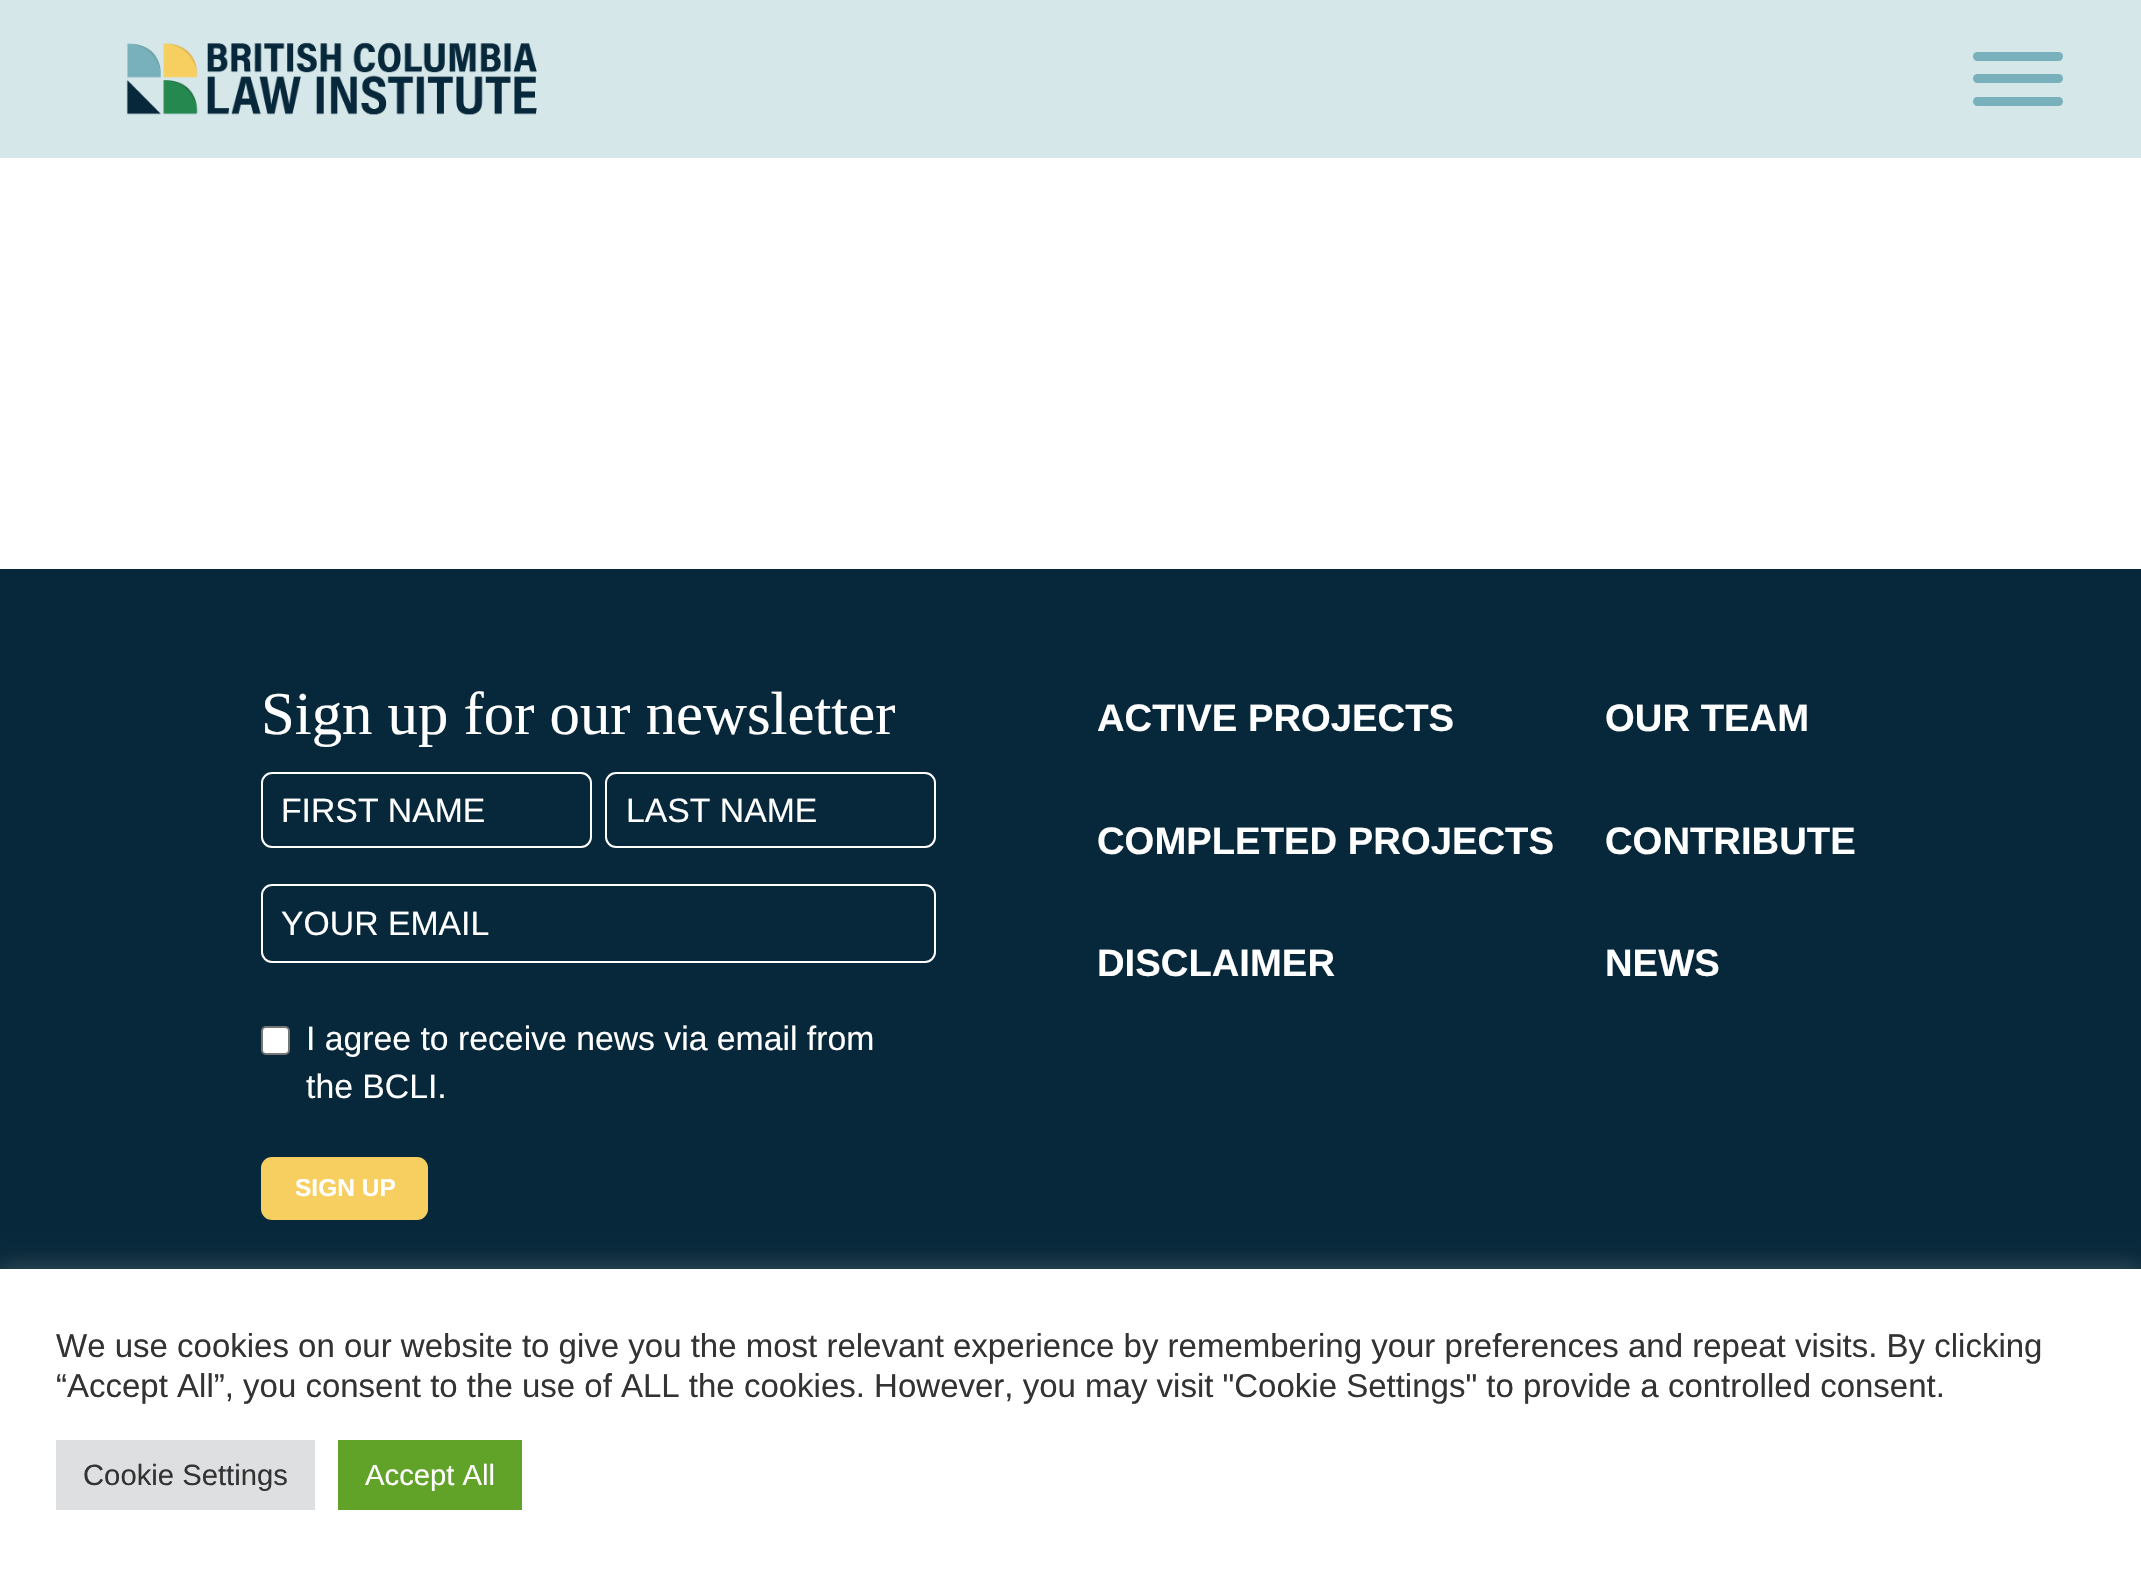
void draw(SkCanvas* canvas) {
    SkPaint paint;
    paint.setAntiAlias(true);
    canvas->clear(0xFFFFFFFF);
    paint.setColor(0xFFD6E7EA);
    canvas->drawRect(SkRect::MakeXYWH(0, 0, 2141, 158), paint);
    canvas->drawImageRect(SkImages::DeferredFromEncodedData(SkData::MakeFromFileName("img1.png")), SkRect::MakeXYWH(126, 42, 411, 73), SkSamplingOptions());
    paint.setColor(0xFF78B1BB);
    canvas->drawRoundRect(SkRect::MakeXYWH(1973, 52, 90, 9), 4.5f, 4.5f, paint);
    canvas->drawRoundRect(SkRect::MakeXYWH(1973, 74, 90, 9), 4.5f, 4.5f, paint);
    canvas->drawRoundRect(SkRect::MakeXYWH(1973, 97, 90, 9), 4.5f, 4.5f, paint);
    paint.setColor(0xFF07283A);
    canvas->drawRect(SkRect::MakeXYWH(0, 569, 2141, 700), paint);
    SkFont font1(fontMgr->matchFamilyStyle("Liberation Serif", SkFontStyle::Normal()), 60.75f);
    font1.setSubpixel(true);
    paint.setColor(0xFFFFFFFF);
    canvas->drawString("Sign up for our newsletter", 261, 734, font1, paint);
    paint.setStyle(SkPaint::kStroke_Style);
    paint.setStrokeWidth(2);
    canvas->drawRoundRect(SkRect::MakeXYWH(262, 773, 329, 74), 10, 10, paint);
    SkFont font2(fontMgr->matchFamilyStyle("Liberation Sans", SkFontStyle::Normal()), 33.75f);
    font2.setSubpixel(true);
    paint.setStyle(SkPaint::kFill_Style);
    canvas->drawString("FIRST NAME", 281, 822, font2, paint);
    paint.setStyle(SkPaint::kStroke_Style);
    canvas->drawRoundRect(SkRect::MakeXYWH(606, 773, 329, 74), 10, 10, paint);
    paint.setStyle(SkPaint::kFill_Style);
    canvas->drawString("LAST NAME", 626, 822, font2, paint);
    paint.setStyle(SkPaint::kStroke_Style);
    canvas->drawRoundRect(SkRect::MakeXYWH(262, 885, 673, 77), 10, 10, paint);
    paint.setStyle(SkPaint::kFill_Style);
    canvas->drawString("YOUR EMAIL", 281, 935, font2, paint);
    canvas->drawRoundRect(SkRect::MakeXYWH(262, 1027, 27, 27), 4, 4, paint);
    paint.setStyle(SkPaint::kStroke_Style);
    paint.setColor(0xFF767676);
    canvas->drawRoundRect(SkRect::MakeXYWH(262, 1027, 27, 27), 4, 4, paint);
    paint.setStyle(SkPaint::kFill_Style);
    paint.setColor(0xFFFFFFFF);
    canvas->drawString("I agree to receive news via email from", 306, 1050, font2, paint);
    canvas->drawString("the BCLI.", 306, 1098, font2, paint);
    paint.setColor(0xFFF7CF61);
    canvas->drawRoundRect(SkRect::MakeXYWH(261, 1157, 167, 63), 11, 11, paint);
    SkFont font3(fontMgr->matchFamilyStyle("Liberation Sans", SkFontStyle::Bold()), 24.5f);
    font3.setSubpixel(true);
    paint.setColor(0xFFFFFFFF);
    canvas->drawString("SIGN UP", 295, 1196, font3, paint);
    SkFont font4(fontMgr->matchFamilyStyle("Liberation Sans", SkFontStyle::Bold()), 38.25f);
    font4.setSubpixel(true);
    canvas->drawString("ACTIVE PROJECTS", 1097, 731, font4, paint);
    canvas->drawString("COMPLETED PROJECTS", 1097, 854, font4, paint);
    canvas->drawString("DISCLAIMER", 1097, 976, font4, paint);
    canvas->drawString("OUR TEAM", 1605, 731, font4, paint);
    canvas->drawString("CONTRIBUTE", 1605, 854, font4, paint);
    canvas->drawString("NEWS", 1605, 976, font4, paint);
    paint.setColor(0x4DACABAB);
    paint.setMaskFilter(SkMaskFilter::MakeBlur(kNormal_SkBlurStyle, 11));
    canvas->drawRect(SkRect::MakeXYWH(0, 1267, 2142, 308), paint);
    paint.setMaskFilter(nullptr);
    paint.setColor(0xFFFFFFFF);
    canvas->drawRect(SkRect::MakeXYWH(0, 1269, 2141, 308), paint);
    SkFont font5(fontMgr->matchFamilyStyle("Liberation Sans", SkFontStyle::Normal()), 33);
    font5.setSubpixel(true);
    paint.setColor(0xFF333333);
    canvas->drawString("We use cookies on our website to give you the most relevant experience by remembering your preferences and repeat visits. By clicking", 56, 1357, font5, paint);
    canvas->drawString("“Accept All”, you consent to the use of ALL the cookies. However, you may visit \"Cookie Settings\" to provide a controlled consent.", 56, 1397, font5, paint);
    paint.setColor(0xFFDEDFE0);
    canvas->drawRect(SkRect::MakeXYWH(56, 1440, 259, 70), paint);
    SkFont font6(fontMgr->matchFamilyStyle("Liberation Sans", SkFontStyle::Normal()), 29.25f);
    font6.setSubpixel(true);
    paint.setColor(0xFF333333);
    canvas->drawString("Cookie Settings", 83, 1485, font6, paint);
    paint.setColor(0xFF61A229);
    canvas->drawRect(SkRect::MakeXYWH(338, 1440, 184, 70), paint);
    paint.setColor(0xFFFFFFFF);
    canvas->drawString("Accept All", 365, 1485, font6, paint);
}
